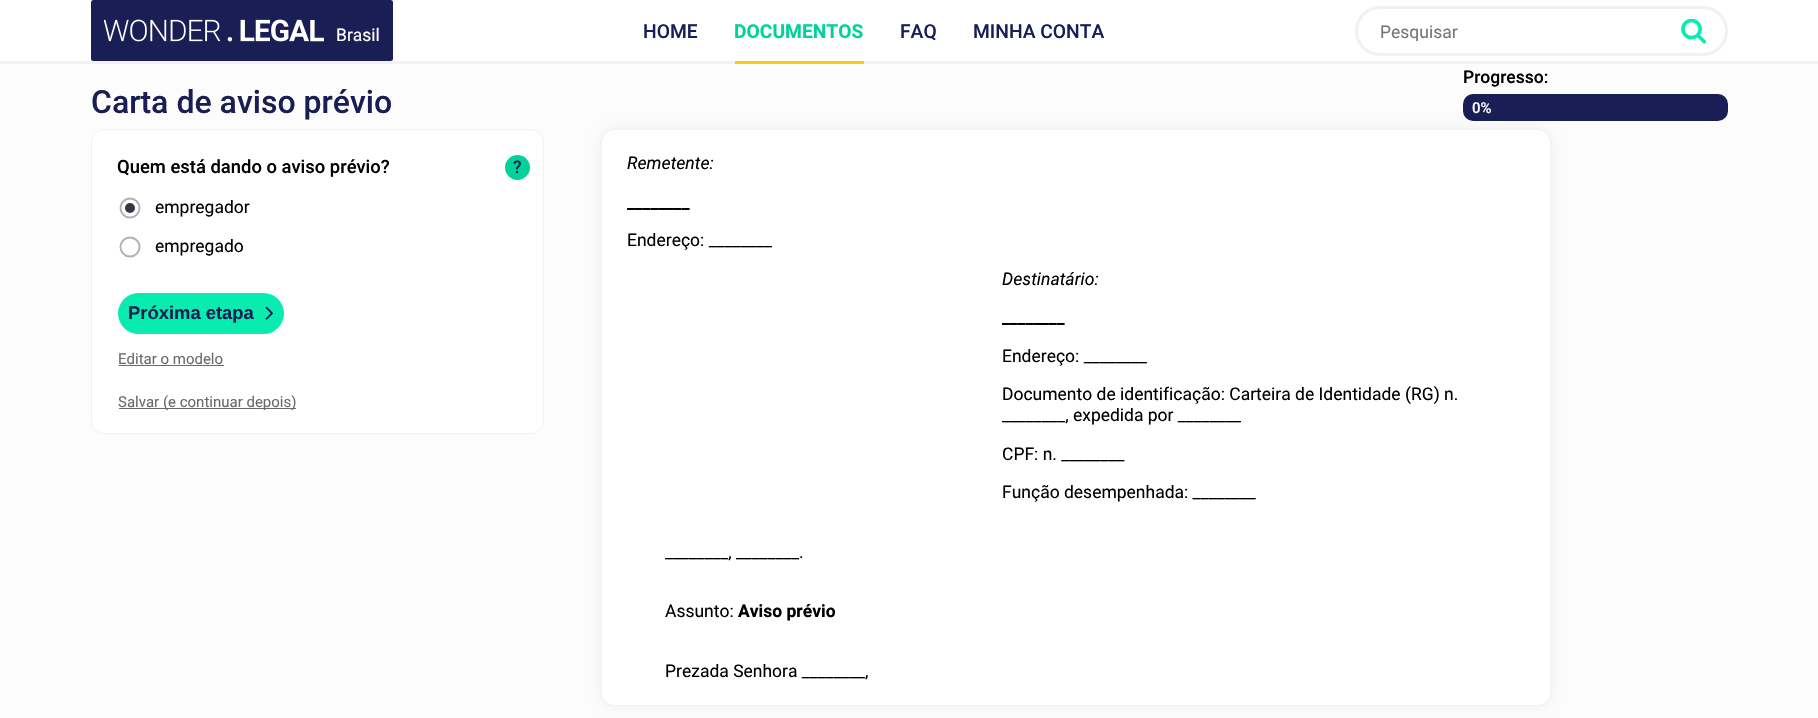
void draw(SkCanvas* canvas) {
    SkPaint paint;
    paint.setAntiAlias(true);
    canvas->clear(0xFFFCFCFC);
    paint.setColor(0xFFFFFFFF);
    canvas->drawRect(SkRect::MakeXYWH(0, 0, 1818, 61), paint);
    paint.setColor(0xFFF1F1F1);
    canvas->drawRect(SkRect::MakeXYWH(0, 61, 1818, 3), paint);
    paint.setColor(0xFF191E55);
    canvas->drawRoundRect(SkRect::MakeXYWH(91, 0, 302, 61), 2.5f, 2.5f, paint);
    canvas->drawImageRect(SkImages::DeferredFromEncodedData(SkData::MakeFromFileName("img1.png")), SkRect::MakeXYWH(104, 19, 220, 23), SkSamplingOptions());
    SkFont font1(fontMgr->matchFamilyStyle("Roboto", SkFontStyle::Normal()), 17.5f);
    font1.setSubpixel(true);
    paint.setColor(0xFFFFFFFF);
    canvas->drawString("Brasil", 336, 41, font1, paint);
    SkFont font2(fontMgr->matchFamilyStyle("Roboto", SkFontStyle(500, SkFontStyle::kNormal_Width, SkFontStyle::kUpright_Slant)), 19.25f);
    font2.setSubpixel(true);
    paint.setColor(0xFF191E55);
    canvas->drawString("HOME", 643, 38, font2, paint);
    paint.setColor(0xFFFCC90D);
    canvas->drawRect(SkRect::MakeXYWH(735, 61, 129, 3), paint);
    SkFont font3(fontMgr->matchFamilyStyle("Roboto", SkFontStyle::Bold()), 19.25f);
    font3.setSubpixel(true);
    paint.setColor(0xFF01D29A);
    canvas->drawString("DOCUMENTOS", 734, 38, font3, paint);
    paint.setColor(0xFF191E55);
    canvas->drawString("FAQ", 900, 38, font2, paint);
    canvas->drawString("MINHA CONTA", 973, 38, font2, paint);
    paint.setStyle(SkPaint::kStroke_Style);
    paint.setStrokeWidth(3);
    paint.setColor(0xFFF1F1F1);
    canvas->drawRoundRect(SkRect::MakeXYWH(1356.5f, 7.5f, 370, 47), 23.5f, 23.5f, paint);
    canvas->save();
    canvas->clipRect(SkRect::MakeXYWH(1368, 21, 312, 20));
    paint.setStyle(SkPaint::kFill_Style);
    paint.setColor(0xFF757575);
    canvas->drawString("Pesquisar", 1380, 38, font1, paint);
    canvas->restore();
    canvas->drawImageRect(SkImages::DeferredFromEncodedData(SkData::MakeFromFileName("img2.png")), SkRect::MakeXYWH(1681, 19, 25, 25), SkSamplingOptions());
    SkFont font4(fontMgr->matchFamilyStyle("Roboto", SkFontStyle(500, SkFontStyle::kNormal_Width, SkFontStyle::kUpright_Slant)), 32);
    font4.setSubpixel(true);
    paint.setColor(0xFF191E55);
    canvas->drawString("Carta de aviso prévio", 91, 113, font4, paint);
    SkFont font5(fontMgr->matchFamilyStyle("Roboto", SkFontStyle(500, SkFontStyle::kNormal_Width, SkFontStyle::kUpright_Slant)), 17.5f);
    font5.setSubpixel(true);
    paint.setColor(0xFF000000);
    canvas->drawString("Progresso:", 1463, 83, font5, paint);
    paint.setColor(0x0D000000);
    paint.setMaskFilter(SkMaskFilter::MakeBlur(kNormal_SkBlurStyle, 6));
    canvas->drawRoundRect(SkRect::MakeXYWH(601, 129, 950, 577), 13, 13, paint);
    paint.setMaskFilter(nullptr);
    paint.setColor(0xFF191E55);
    canvas->drawRoundRect(SkRect::MakeXYWH(1463, 94, 265, 27), 10, 10, paint);
    SkFont font6(fontMgr->matchFamilyStyle("Roboto", SkFontStyle(500, SkFontStyle::kNormal_Width, SkFontStyle::kUpright_Slant)), 15);
    font6.setSubpixel(true);
    paint.setColor(0xFFFFFFFF);
    canvas->drawString("0%", 1472, 113, font6, paint);
    canvas->drawRoundRect(SkRect::MakeXYWH(91.5f, 129.5f, 452, 304), 12.5f, 12.5f, paint);
    paint.setStyle(SkPaint::kStroke_Style);
    paint.setStrokeWidth(1);
    paint.setColor(0xFFF1F1F1);
    canvas->drawRoundRect(SkRect::MakeXYWH(91.5f, 129.5f, 452, 304), 12.5f, 12.5f, paint);
    SkFont font7(fontMgr->matchFamilyStyle("Roboto", SkFontStyle(500, SkFontStyle::kNormal_Width, SkFontStyle::kUpright_Slant)), 18.4f);
    font7.setSubpixel(true);
    paint.setStyle(SkPaint::kFill_Style);
    paint.setColor(0xFF000000);
    canvas->drawString("Quem está dando o aviso prévio?", 117, 173, font7, paint);
    paint.setColor(0xFF01D29A);
    canvas->drawCircle(517.5f, 167.5f, 12.5f, paint);
    paint.setColor(0xFF191E55);
    canvas->drawString("?", 513, 173, font5, paint);
    canvas->save();
    canvas->clipPath(SkPathBuilder().moveTo(117.5f, -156).lineTo(142.5f, -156).lineTo(142.5f, 219).lineTo(117.5f, 219).close().detach(), true);
    paint.setStyle(SkPaint::kStroke_Style);
    paint.setStrokeWidth(1.9f);
    paint.setColor(0xFFB2B2B2);
    canvas->drawCircle(130, 208, 9.5f, paint);
    canvas->restore();
    paint.setStyle(SkPaint::kFill_Style);
    paint.setColor(0xFF343843);
    canvas->drawCircle(130, 208, 5, paint);
    paint.setColor(0xFF000000);
    canvas->drawString("empregador", 155, 213, font1, paint);
    canvas->save();
    canvas->clipPath(SkPathBuilder().moveTo(117.5f, 236).lineTo(142.5f, 236).lineTo(142.5f, 611).lineTo(117.5f, 611).close().detach(), true);
    paint.setStyle(SkPaint::kStroke_Style);
    paint.setColor(0xFFB2B2B2);
    canvas->drawCircle(130, 247, 9.5f, paint);
    canvas->restore();
    paint.setStyle(SkPaint::kFill_Style);
    paint.setColor(0xFF000000);
    canvas->drawString("empregado", 155, 252, font1, paint);
    paint.setColor(0xFF08ECAF);
    canvas->drawRoundRect(SkRect::MakeXYWH(118, 293, 166, 41), 20.5f, 20.5f, paint);
    SkFont font8(fontMgr->matchFamilyStyle("Liberation Sans", SkFontStyle::Bold()), 18.4f);
    font8.setSubpixel(true);
    paint.setColor(0xFF191E55);
    canvas->drawString("Próxima etapa", 128, 319, font8, paint);
    canvas->drawImageRect(SkImages::DeferredFromEncodedData(SkData::MakeFromFileName("img3.png")), SkRect::MakeXYWH(265, 306, 8, 14), SkSamplingOptions());
    SkFont font9(fontMgr->matchFamilyStyle("Roboto", SkFontStyle::Normal()), 15);
    font9.setSubpixel(true);
    paint.setColor(0xFF6B6868);
    canvas->drawString("Editar o modelo", 118, 364, font9, paint);
    canvas->drawRect(SkRect::MakeXYWH(119, 365, 105, 1), paint);
    canvas->drawRect(SkRect::MakeXYWH(119, 408, 177, 1), paint);
    canvas->drawString("Salvar (e continuar depois)", 118, 407, font9, paint);
    paint.setColor(0xFFFFFFFF);
    canvas->drawRoundRect(SkRect::MakeXYWH(601.5f, 129.5f, 949, 576), 12.5f, 12.5f, paint);
    paint.setStyle(SkPaint::kStroke_Style);
    paint.setStrokeWidth(1);
    paint.setColor(0xFFF1F1F1);
    canvas->drawRoundRect(SkRect::MakeXYWH(601.5f, 129.5f, 949, 576), 12.5f, 12.5f, paint);
    SkFont font10(fontMgr->matchFamilyStyle("Roboto", SkFontStyle::Italic()), 17.5f);
    font10.setSubpixel(true);
    paint.setStyle(SkPaint::kFill_Style);
    paint.setColor(0xFF000000);
    canvas->drawString("Remetente:", 627, 169, font10, paint);
    SkFont font11(fontMgr->matchFamilyStyle("Roboto", SkFontStyle::Bold()), 17.5f);
    font11.setSubpixel(true);
    canvas->drawString("________", 627, 208, font11, paint);
    canvas->drawString("Endereço: ________", 627, 246, font1, paint);
    canvas->drawString("Destinatário:", 1002, 285, font10, paint);
    canvas->drawString("________", 1002, 323, font11, paint);
    canvas->drawString("Endereço: ________", 1002, 362, font1, paint);
    canvas->drawString("Documento de identificação: Carteira de Identidade (RG) n.", 1002, 400, font1, paint);
    canvas->drawString("________, expedida por ________", 1002, 421, font1, paint);
    canvas->drawString("CPF: n. ________", 1002, 460, font1, paint);
    canvas->drawString("Função desempenhada: ________", 1002, 498, font1, paint);
    canvas->drawString("________, ________.", 665, 558, font1, paint);
    canvas->drawString("Assunto:", 665, 617, font1, paint);
    canvas->drawString("Aviso prévio", 738, 617, font11, paint);
    canvas->drawString("Prezada Senhora ________,", 665, 677, font1, paint);
}
